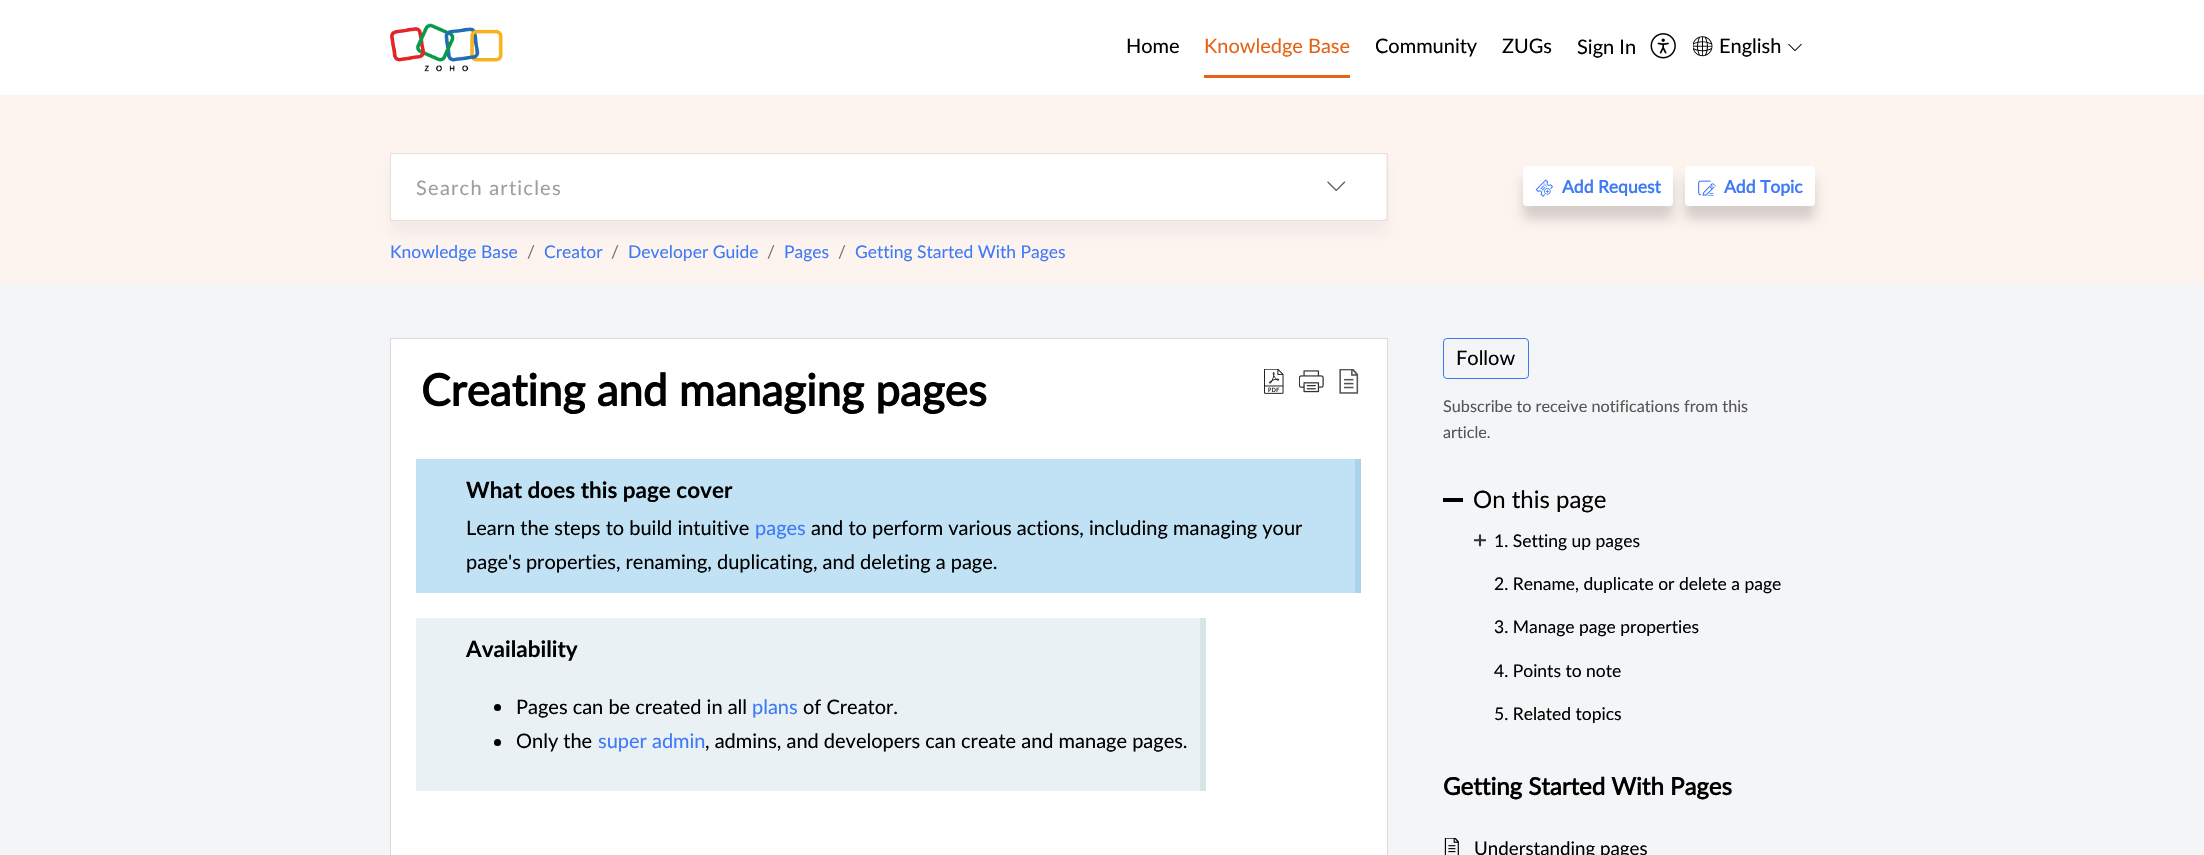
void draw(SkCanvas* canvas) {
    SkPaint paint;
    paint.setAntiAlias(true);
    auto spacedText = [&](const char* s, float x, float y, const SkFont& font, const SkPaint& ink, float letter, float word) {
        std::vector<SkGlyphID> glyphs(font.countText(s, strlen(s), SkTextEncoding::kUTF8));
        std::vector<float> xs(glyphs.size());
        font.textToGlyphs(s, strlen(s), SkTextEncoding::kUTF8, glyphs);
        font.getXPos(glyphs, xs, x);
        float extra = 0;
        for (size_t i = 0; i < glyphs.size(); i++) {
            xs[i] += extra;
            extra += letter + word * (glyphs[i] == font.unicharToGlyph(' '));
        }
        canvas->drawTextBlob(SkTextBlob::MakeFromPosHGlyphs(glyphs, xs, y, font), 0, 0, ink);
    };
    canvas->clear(0xFFF3F5F7);
    paint.setColor(0xFFFFFFFF);
    canvas->drawRect(SkRect::MakeXYWH(0, 0, 2204, 95), paint);
    canvas->drawImageRect(SkImages::DeferredFromEncodedData(SkData::MakeFromFileName("img1.png")), SkRect::MakeXYWH(390, 23, 113, 49), SkSamplingOptions());
    SkFont font1(fontMgr->matchFamilyStyle("Lato", SkFontStyle::Normal()), 20);
    font1.setSubpixel(true);
    paint.setColor(0xFF000000);
    canvas->drawString("Home", 1126, 53, font1, paint);
    paint.setColor(0xFFE46317);
    canvas->drawRect(SkRect::MakeXYWH(1204, 75, 146, 3), paint);
    canvas->drawString("Knowledge Base", 1204, 53, font1, paint);
    paint.setColor(0xFF000000);
    canvas->drawString("Community", 1375, 53, font1, paint);
    canvas->drawString("ZUGs", 1502, 53, font1, paint);
    canvas->drawString("Sign In", 1577, 54, font1, paint);
    canvas->drawImageRect(SkImages::DeferredFromEncodedData(SkData::MakeFromFileName("img2.png")), SkRect::MakeXYWH(1650, 33, 26, 26), SkSamplingOptions());
    canvas->drawImageRect(SkImages::DeferredFromEncodedData(SkData::MakeFromFileName("img3.png")), SkRect::MakeXYWH(1693, 36, 20, 21), SkSamplingOptions());
    canvas->drawString("English", 1719, 53, font1, paint);
    canvas->drawImageRect(SkImages::DeferredFromEncodedData(SkData::MakeFromFileName("img4.png")), SkRect::MakeXYWH(1788, 43, 14, 8), SkSamplingOptions());
    paint.setColor(0xFFFDF4EF);
    canvas->drawRect(SkRect::MakeXYWH(0, 95, 2204, 188), paint);
    paint.setColor(0xD6F0E8E5);
    paint.setMaskFilter(SkMaskFilter::MakeBlur(kNormal_SkBlurStyle, 6));
    canvas->drawRect(SkRect::MakeXYWH(390, 165, 998, 69), paint);
    paint.setMaskFilter(nullptr);
    paint.setStyle(SkPaint::kStroke_Style);
    paint.setStrokeWidth(1);
    paint.setColor(0xFFEADFDB);
    canvas->drawRect(SkRect::MakeXYWH(390.5f, 153.5f, 997, 67), paint);
    paint.setStyle(SkPaint::kFill_Style);
    paint.setColor(0xFFFFFFFF);
    canvas->drawRoundRect(SkRect::MakeXYWH(391, 154, 995, 66), 4, 4, paint);
    canvas->drawRoundRect(SkRect::MakeXYWH(391, 154, 895, 66), 4, 4, paint);
    paint.setColor(0xFF9E9E9E);
    spacedText("Search articles", 416, 195, font1, paint, 1.25f, 0);
    canvas->drawImageRect(SkImages::DeferredFromEncodedData(SkData::MakeFromFileName("img5.png")), SkRect::MakeXYWH(1327, 181, 19, 10), SkSamplingOptions());
    paint.setColor(0x29000000);
    paint.setMaskFilter(SkMaskFilter::MakeBlur(kNormal_SkBlurStyle, 6));
    canvas->drawRoundRect(SkRect::MakeXYWH(1523, 179, 150, 40), 4, 4, paint);
    paint.setMaskFilter(nullptr);
    paint.setColor(0xFFFFFFFF);
    canvas->drawRoundRect(SkRect::MakeXYWH(1523, 166, 150, 40), 4, 4, paint);
    canvas->drawImageRect(SkImages::DeferredFromEncodedData(SkData::MakeFromFileName("img6.png")), SkRect::MakeXYWH(1535, 179, 19, 18), SkSamplingOptions());
    SkFont font2(fontMgr->matchFamilyStyle("Lato", SkFontStyle::Bold()), 17.5f);
    font2.setSubpixel(true);
    paint.setColor(0xFF3E7AF7);
    canvas->drawString("Add Request", 1562, 193, font2, paint);
    paint.setColor(0x29000000);
    paint.setMaskFilter(SkMaskFilter::MakeBlur(kNormal_SkBlurStyle, 6));
    canvas->drawRoundRect(SkRect::MakeXYWH(1685, 179, 130, 40), 4, 4, paint);
    paint.setMaskFilter(nullptr);
    paint.setColor(0xFFFFFFFF);
    canvas->drawRoundRect(SkRect::MakeXYWH(1685, 166, 130, 40), 4, 4, paint);
    canvas->drawImageRect(SkImages::DeferredFromEncodedData(SkData::MakeFromFileName("img7.png")), SkRect::MakeXYWH(1698, 180, 18, 16), SkSamplingOptions());
    paint.setColor(0xFF3E7AF7);
    canvas->drawString("Add Topic", 1724, 193, font2, paint);
    SkFont font3(fontMgr->matchFamilyStyle("Lato", SkFontStyle::Normal()), 17.5f);
    font3.setSubpixel(true);
    canvas->drawString("Knowledge Base", 390, 258, font3, paint);
    paint.setColor(0xFF777777);
    canvas->drawString("/", 527, 258, font3, paint);
    paint.setColor(0xFF3E7AF7);
    canvas->drawString("Creator", 544, 258, font3, paint);
    paint.setColor(0xFF777777);
    canvas->drawString("/", 611, 258, font3, paint);
    paint.setColor(0xFF3E7AF7);
    canvas->drawString("Developer Guide", 628, 258, font3, paint);
    paint.setColor(0xFF777777);
    canvas->drawString("/", 767, 258, font3, paint);
    paint.setColor(0xFF3E7AF7);
    canvas->drawString("Pages", 784, 258, font3, paint);
    paint.setColor(0xFF777777);
    canvas->drawString("/", 838, 258, font3, paint);
    paint.setColor(0xFF3E7AF7);
    canvas->drawString("Getting Started With Pages", 855, 258, font3, paint);
    paint.setColor(0xFFFFFFFF);
    canvas->drawRect(SkRect::MakeXYWH(390.5f, 338.5f, 997, 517), paint);
    paint.setStyle(SkPaint::kStroke_Style);
    paint.setColor(0xFFD4DADF);
    canvas->drawRect(SkRect::MakeXYWH(390.5f, 338.5f, 997, 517), paint);
    SkFont font4(fontMgr->matchFamilyStyle("Lato", SkFontStyle::Bold()), 44);
    font4.setSubpixel(true);
    paint.setStyle(SkPaint::kFill_Style);
    paint.setColor(0xFF000000);
    canvas->drawString("Creating and managing pages", 421, 406, font4, paint);
    canvas->drawImageRect(SkImages::DeferredFromEncodedData(SkData::MakeFromFileName("img8.png")), SkRect::MakeXYWH(1264, 369, 20, 25), SkSamplingOptions());
    canvas->drawImageRect(SkImages::DeferredFromEncodedData(SkData::MakeFromFileName("img9.png")), SkRect::MakeXYWH(1299, 370, 25, 23), SkSamplingOptions());
    canvas->drawImageRect(SkImages::DeferredFromEncodedData(SkData::MakeFromFileName("img10.png")), SkRect::MakeXYWH(1339, 369, 20, 25), SkSamplingOptions());
    paint.setColor(0xFFC1E1F4);
    canvas->drawRect(SkRect::MakeXYWH(416, 459, 939, 134), paint);
    paint.setColor(0xFFA7D4EA);
    canvas->drawRect(SkRect::MakeXYWH(1355, 459, 6, 134), paint);
    SkFont font5(fontMgr->matchFamilyStyle("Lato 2", SkFontStyle::Bold()), 22.5f);
    font5.setSubpixel(true);
    paint.setColor(0xFF000000);
    canvas->drawString("What does this page cover", 466, 498, font5, paint);
    canvas->drawString("Learn the steps to build intuitive", 466, 535, font1, paint);
    paint.setColor(0xFF3E7AF7);
    canvas->drawString("pages", 755, 535, font1, paint);
    paint.setColor(0xFF000000);
    canvas->drawString("and to perform various actions, including managing your", 811, 535, font1, paint);
    canvas->drawString("page's properties, renaming, duplicating, and deleting a page.", 466, 569, font1, paint);
    paint.setColor(0xFFE9F1F4);
    canvas->drawRect(SkRect::MakeXYWH(416, 618, 784, 173), paint);
    paint.setColor(0xFFD9E4E8);
    canvas->drawRect(SkRect::MakeXYWH(1200, 618, 6, 173), paint);
    paint.setColor(0xFF000000);
    canvas->drawString("Availability", 466, 657, font5, paint);
    canvas->drawCircle(497.5f, 707.5f, 3.5f, paint);
    canvas->drawString("Pages can be created in all", 516, 714, font1, paint);
    paint.setColor(0xFF3E7AF7);
    canvas->drawString("plans", 752, 714, font1, paint);
    paint.setColor(0xFF000000);
    canvas->drawString("of Creator.", 803, 714, font1, paint);
    canvas->drawCircle(497.5f, 742.5f, 3.5f, paint);
    canvas->drawString("Only the", 516, 748, font1, paint);
    paint.setColor(0xFF3E7AF7);
    canvas->drawString("super admin", 598, 748, font1, paint);
    paint.setColor(0xFF000000);
    canvas->drawString(", admins, and developers can create and manage pages.", 705, 748, font1, paint);
    paint.setStyle(SkPaint::kStroke_Style);
    paint.setColor(0xFF3E7AF7);
    canvas->drawRoundRect(SkRect::MakeXYWH(1443.5f, 338.5f, 85, 40), 3.5f, 3.5f, paint);
    paint.setStyle(SkPaint::kFill_Style);
    paint.setColor(0xFF000000);
    canvas->drawString("Follow", 1456, 365, font1, paint);
    SkFont font6(fontMgr->matchFamilyStyle("Lato", SkFontStyle::Normal()), 16.25f);
    font6.setSubpixel(true);
    paint.setColor(0xFF555555);
    canvas->drawString("Subscribe to receive notifications from this", 1443, 412, font6, paint);
    canvas->drawString("article.", 1443, 438, font6, paint);
    paint.setColor(0xFF000000);
    canvas->drawRect(SkRect::MakeXYWH(1443, 498, 20, 4), paint);
    SkFont font7(fontMgr->matchFamilyStyle("Lato", SkFontStyle::Normal()), 24);
    font7.setSubpixel(true);
    canvas->drawString("On this page", 1473, 508, font7, paint);
    canvas->drawImageRect(SkImages::DeferredFromEncodedData(SkData::MakeFromFileName("img11.png")), SkRect::MakeXYWH(1473, 534, 13, 13), SkSamplingOptions());
    canvas->drawString("1. Setting up pages", 1494, 547, font3, paint);
    canvas->drawString("2. Rename, duplicate or delete a page", 1494, 590, font3, paint);
    canvas->drawString("3. Manage page properties", 1494, 633, font3, paint);
    canvas->drawString("4. Points to note", 1494, 677, font3, paint);
    canvas->drawString("5. Related topics", 1494, 720, font3, paint);
    SkFont font8(fontMgr->matchFamilyStyle("Lato", SkFontStyle::Bold()), 24);
    font8.setSubpixel(true);
    canvas->drawString("Getting Started With Pages", 1443, 795, font8, paint);
    canvas->drawImageRect(SkImages::DeferredFromEncodedData(SkData::MakeFromFileName("img12.png")), SkRect::MakeXYWH(1444, 838, 15, 17), SkSamplingOptions());
    SkFont font9(fontMgr->matchFamilyStyle("Lato", SkFontStyle::Normal()), 18.75f);
    font9.setSubpixel(true);
    canvas->drawString("Understanding pages", 1474, 855, font9, paint);
}
